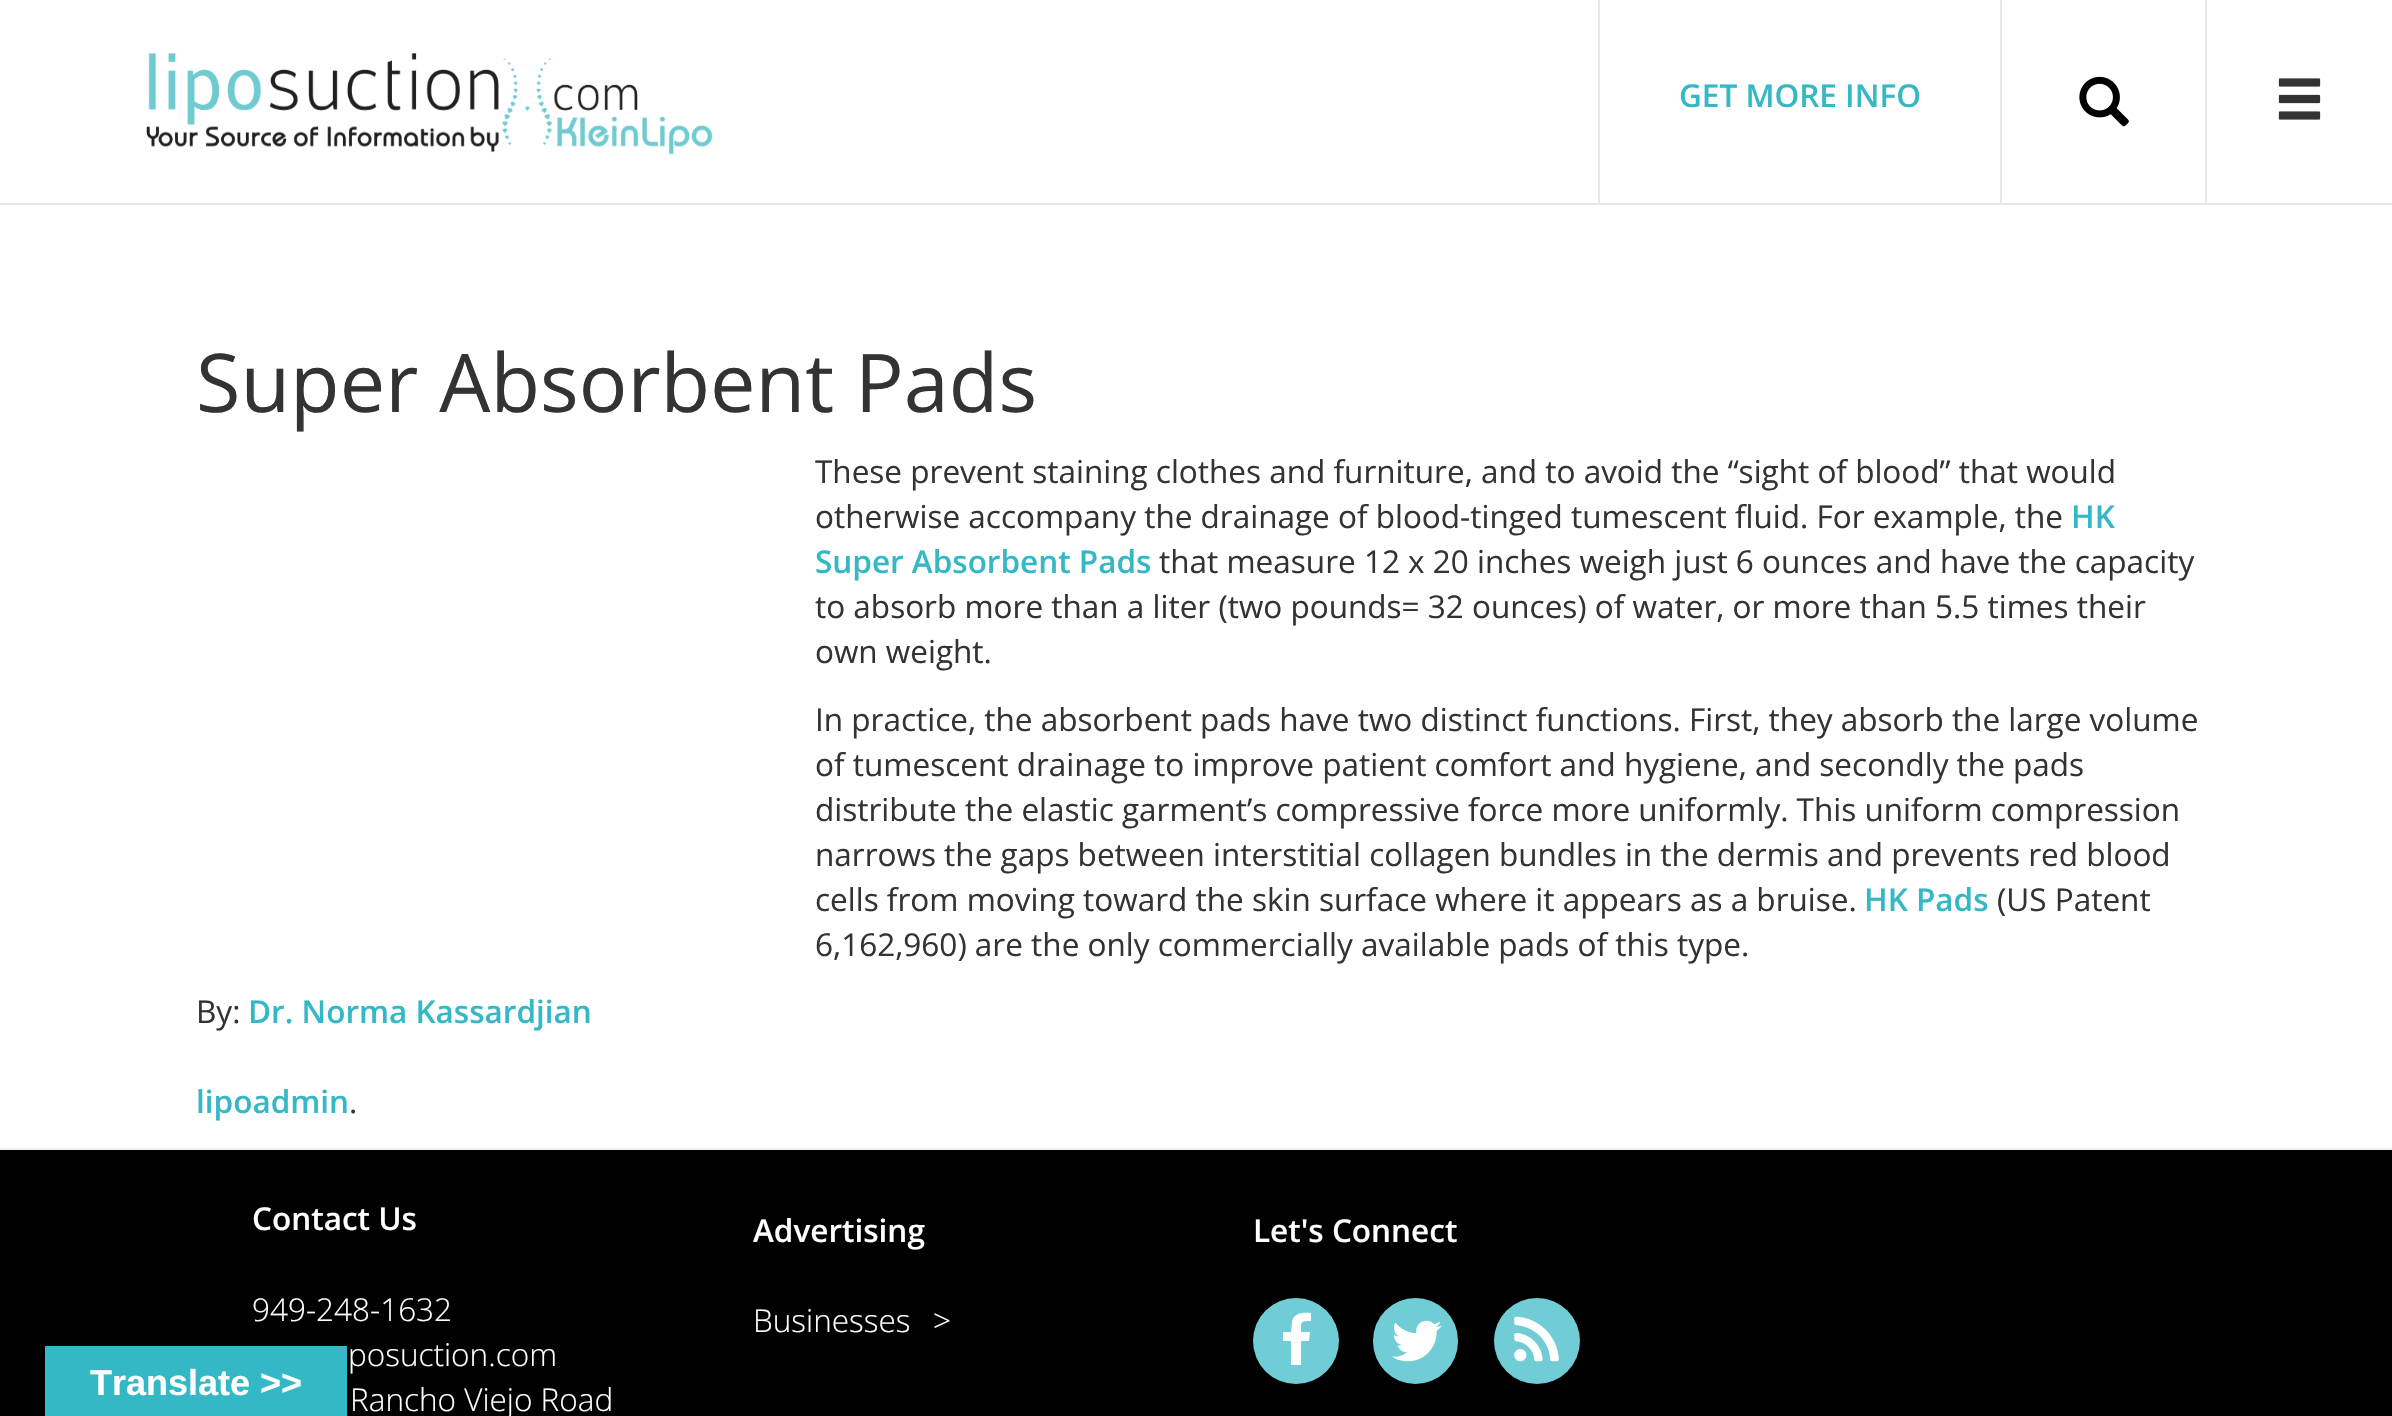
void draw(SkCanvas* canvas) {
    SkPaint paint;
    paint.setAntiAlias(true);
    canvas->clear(0xFFFFFFFF);
    paint.setColor(0xFFE7E7E7);
    canvas->drawRect(SkRect::MakeXYWH(0, 203, 2392, 2), paint);
    canvas->drawImageRect(SkImages::DeferredFromEncodedData(SkData::MakeFromFileName("img1.png")), SkRect::MakeXYWH(146, 53, 567, 102), SkSamplingOptions());
    canvas->drawRect(SkRect::MakeXYWH(2000, 0, 2, 203), paint);
    canvas->drawRect(SkRect::MakeXYWH(1598, 0, 2, 203), paint);
    SkFont font1(fontMgr->matchFamilyStyle("Open Sans", SkFontStyle(600, SkFontStyle::kNormal_Width, SkFontStyle::kUpright_Slant)), 31.5f);
    font1.setSubpixel(true);
    paint.setColor(0xFF34B8C5);
    canvas->drawString("GET MORE INFO", 1679, 107, font1, paint);
    paint.setColor(0xFFE7E7E7);
    canvas->drawRect(SkRect::MakeXYWH(2205, 0, 2, 203), paint);
    canvas->drawImageRect(SkImages::DeferredFromEncodedData(SkData::MakeFromFileName("img2.png")), SkRect::MakeXYWH(2079, 76, 50, 51), SkSamplingOptions());
    canvas->drawImageRect(SkImages::DeferredFromEncodedData(SkData::MakeFromFileName("img3.png")), SkRect::MakeXYWH(2278, 78, 43, 42), SkSamplingOptions());
    SkFont font2(fontMgr->matchFamilyStyle("Open Sans", SkFontStyle::Normal()), 81);
    font2.setSubpixel(true);
    paint.setColor(0xFF333333);
    canvas->drawString("Super Absorbent Pads", 196, 412, font2, paint);
    SkFont font3(fontMgr->matchFamilyStyle("Open Sans", SkFontStyle::Normal()), 31.5f);
    font3.setSubpixel(true);
    canvas->drawString("These prevent staining clothes and furniture, and to avoid the “sight of blood” that would", 815, 483, font3, paint);
    canvas->drawString("otherwise accompany the drainage of blood-tinged tumescent fluid. For example, the", 815, 528, font3, paint);
    paint.setColor(0xFF34B8C5);
    canvas->drawString("HK", 2071, 528, font1, paint);
    canvas->drawString("Super Absorbent Pads", 815, 573, font1, paint);
    paint.setColor(0xFF333333);
    canvas->drawString("that measure 12 x 20 inches weigh just 6 ounces and have the capacity", 1159, 573, font3, paint);
    canvas->drawString("to absorb more than a liter (two pounds= 32 ounces) of water, or more than 5.5 times their", 815, 618, font3, paint);
    canvas->drawString("own weight.", 815, 663, font3, paint);
    canvas->drawString("In practice, the absorbent pads have two distinct functions. First, they absorb the large volume", 815, 731, font3, paint);
    canvas->drawString("of tumescent drainage to improve patient comfort and hygiene, and secondly the pads", 815, 776, font3, paint);
    canvas->drawString("distribute the elastic garment’s compressive force more uniformly. This uniform compression", 815, 821, font3, paint);
    canvas->drawString("narrows the gaps between interstitial collagen bundles in the dermis and prevents red blood", 815, 866, font3, paint);
    canvas->drawString("cells from moving toward the skin surface where it appears as a bruise.", 815, 911, font3, paint);
    paint.setColor(0xFF34B8C5);
    canvas->drawString("HK Pads", 1864, 911, font1, paint);
    paint.setColor(0xFF333333);
    canvas->drawString("(US Patent", 1997, 911, font3, paint);
    canvas->drawString("6,162,960) are the only commercially available pads of this type.", 815, 956, font3, paint);
    canvas->drawString("By:", 196, 1023, font3, paint);
    paint.setColor(0xFF34B8C5);
    canvas->drawString("Dr. Norma Kassardjian", 248, 1023, font1, paint);
    canvas->drawString("lipoadmin", 196, 1113, font1, paint);
    paint.setColor(0xFF333333);
    canvas->drawString(".", 349, 1113, font3, paint);
    paint.setColor(0xFF000000);
    canvas->drawRect(SkRect::MakeXYWH(0, 1150, 2392, 266), paint);
    paint.setColor(0x4D000000);
    paint.setMaskFilter(SkMaskFilter::MakeBlur(kNormal_SkBlurStyle, 10));
    canvas->drawRect(SkRect::MakeXYWH(45, 1346, 302, 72), paint);
    paint.setMaskFilter(nullptr);
    paint.setColor(0xFF35B8C5);
    canvas->drawRect(SkRect::MakeXYWH(45, 1346, 302, 70), paint);
    SkFont font4(fontMgr->matchFamilyStyle("Liberation Sans", SkFontStyle::Bold()), 36);
    font4.setSubpixel(true);
    paint.setColor(0xFFFFFFFF);
    canvas->drawString("Translate >>", 90, 1395, font4, paint);
    paint.setColor(0xFFF1F1F1);
    canvas->drawRect(SkRect::MakeXYWH(0, 1148, 2392, 2), paint);
    paint.setColor(0xFFFFFFFF);
    canvas->drawString("Contact Us", 252, 1230, font1, paint);
    SkFont font5(fontMgr->matchFamilyStyle("Open Sans", SkFontStyle(300, SkFontStyle::kNormal_Width, SkFontStyle::kUpright_Slant)), 31.5f);
    font5.setSubpixel(true);
    canvas->drawString("949-248-1632", 252, 1321, font5, paint);
    canvas->drawString("posuction.com", 348, 1366, font5, paint);
    canvas->drawString("Rancho Viejo Road", 350, 1411, font5, paint);
    canvas->drawString("Advertising", 753, 1242, font1, paint);
    canvas->drawString("Businesses", 753, 1332, font5, paint);
    canvas->drawString(">", 933, 1332, font5, paint);
    canvas->drawString("Let's Connect", 1253, 1242, font1, paint);
    paint.setColor(0xFF70CDD5);
    canvas->drawCircle(1296, 1341, 43, paint);
    paint.setColor(0xFFFFFFFF);
    canvas->drawPath(SkPathBuilder().moveTo(1311, 1313).lineTo(1311, 1321).cubicTo(1300, 1321, 1301, 1322, 1301, 1332).lineTo(1310, 1332).lineTo(1309, 1341).lineTo(1301, 1341).lineTo(1301, 1365).lineTo(1291, 1365).lineTo(1291, 1341).lineTo(1283, 1341).lineTo(1283, 1332).lineTo(1291, 1332).lineTo(1292, 1322).cubicTo(1293, 1313, 1303, 1312, 1311, 1313).close().detach(), paint);
    paint.setColor(0xFF70CDD5);
    canvas->drawRoundRect(SkRect::MakeXYWH(1373, 1298, 85, 86), 42.5f, 42.5f, paint);
    canvas->drawImageRect(SkImages::DeferredFromEncodedData(SkData::MakeFromFileName("img4.png")), SkRect::MakeXYWH(1392, 1320, 50, 42), SkSamplingOptions());
    canvas->drawCircle(1537, 1341, 43, paint);
    canvas->drawImageRect(SkImages::DeferredFromEncodedData(SkData::MakeFromFileName("img5.png")), SkRect::MakeXYWH(1514, 1316, 45, 46), SkSamplingOptions());
}
